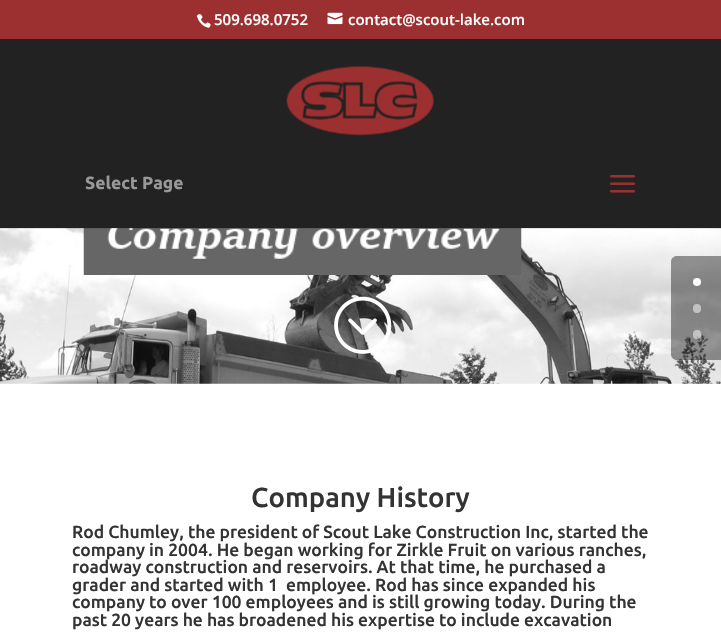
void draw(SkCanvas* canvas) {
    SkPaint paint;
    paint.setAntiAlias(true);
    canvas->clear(0xFFFFFFFF);
    paint.setColor(0xFF9C3030);
    canvas->drawRect(SkRect::MakeXYWH(0, 0, 721, 39), paint);
    canvas->drawImageRect(SkImages::DeferredFromEncodedData(SkData::MakeFromFileName("img1.png")), SkRect::MakeXYWH(196, 14, 15, 14), SkSamplingOptions());
    SkFont font1(fontMgr->matchFamilyStyle("Open Sans", SkFontStyle(600, SkFontStyle::kNormal_Width, SkFontStyle::kUpright_Slant)), 15);
    font1.setSubpixel(true);
    paint.setColor(0xFFFFFFFF);
    canvas->drawString("509.698.0752", 214, 25, font1, paint);
    canvas->drawImageRect(SkImages::DeferredFromEncodedData(SkData::MakeFromFileName("img2.png")), SkRect::MakeXYWH(327, 12, 16, 13), SkSamplingOptions());
    canvas->drawString("contact@scout-lake.com", 348, 25, font1, paint);
    canvas->drawImageRect(SkImages::DeferredFromEncodedData(SkData::MakeFromFileName("img5.png")), SkRect::MakeXYWH(0, 228, 721, 156), SkSamplingOptions());
    canvas->drawImageRect(SkImages::DeferredFromEncodedData(SkData::MakeFromFileName("img6.png")), SkRect::MakeXYWH(83, 228, 439, 47), SkSamplingOptions());
    paint.setColor(0x1A000000);
    canvas->drawRect(SkRect::MakeXYWH(0, 228, 721, 1), paint);
    paint.setColor(0xFF222222);
    canvas->drawRect(SkRect::MakeXYWH(0, 39, 721, 189), paint);
    canvas->drawImageRect(SkImages::DeferredFromEncodedData(SkData::MakeFromFileName("img3.png")), SkRect::MakeXYWH(286, 66, 148, 70), SkSamplingOptions());
    SkFont font2(fontMgr->matchFamilyStyle("Ubuntu", SkFontStyle::Bold()), 17.5f);
    font2.setSubpixel(true);
    paint.setColor(0xFF989898);
    canvas->drawString("Select Page", 85, 189, font2, paint);
    canvas->drawImageRect(SkImages::DeferredFromEncodedData(SkData::MakeFromFileName("img4.png")), SkRect::MakeXYWH(610, 175, 25, 18), SkSamplingOptions());
    paint.setColor(0x66000000);
    canvas->drawPath(SkPathBuilder().moveTo(677, 256).lineTo(721, 256).lineTo(721, 360).lineTo(677, 360).cubicTo(673.5f, 360, 671, 357.5f, 671, 354).lineTo(671, 262).cubicTo(671, 258.5f, 673.5f, 256, 677, 256).close().detach(), paint);
    paint.setColor(0xFFFFFFFF);
    canvas->drawCircle(697, 282, 4, paint);
    paint.setColor(0x80FFFFFF);
    canvas->drawRoundRect(SkRect::MakeXYWH(693, 304, 8, 9), 4, 4, paint);
    canvas->drawRoundRect(SkRect::MakeXYWH(693, 330, 8, 9), 4, 4, paint);
    canvas->drawImageRect(SkImages::DeferredFromEncodedData(SkData::MakeFromFileName("img7.png")), SkRect::MakeXYWH(334, 296, 58, 58), SkSamplingOptions());
    SkFont font3(fontMgr->matchFamilyStyle("Ubuntu", SkFontStyle(500, SkFontStyle::kNormal_Width, SkFontStyle::kUpright_Slant)), 27.5f);
    font3.setSubpixel(true);
    paint.setColor(0xFF333333);
    canvas->drawString("Company History", 251, 507, font3, paint);
    SkFont font4(fontMgr->matchFamilyStyle("Ubuntu", SkFontStyle(500, SkFontStyle::kNormal_Width, SkFontStyle::kUpright_Slant)), 17.5f);
    font4.setSubpixel(true);
    canvas->drawString("Rod Chumley, the president of Scout Lake Construction Inc, started the", 72, 538, font4, paint);
    canvas->drawString("company in 2004. He began working for Zirkle Fruit on various ranches,", 72, 556, font4, paint);
    canvas->drawString("roadway construction and reservoirs. At that time, he purchased a", 72, 573, font4, paint);
    canvas->drawString("grader and started with 1  employee. Rod has since expanded his", 72, 591, font4, paint);
    canvas->drawString("company to over 100 employees and is still growing today. During the", 72, 608, font4, paint);
    canvas->drawString("past 20 years he has broadened his expertise to include excavation", 72, 626, font4, paint);
}
